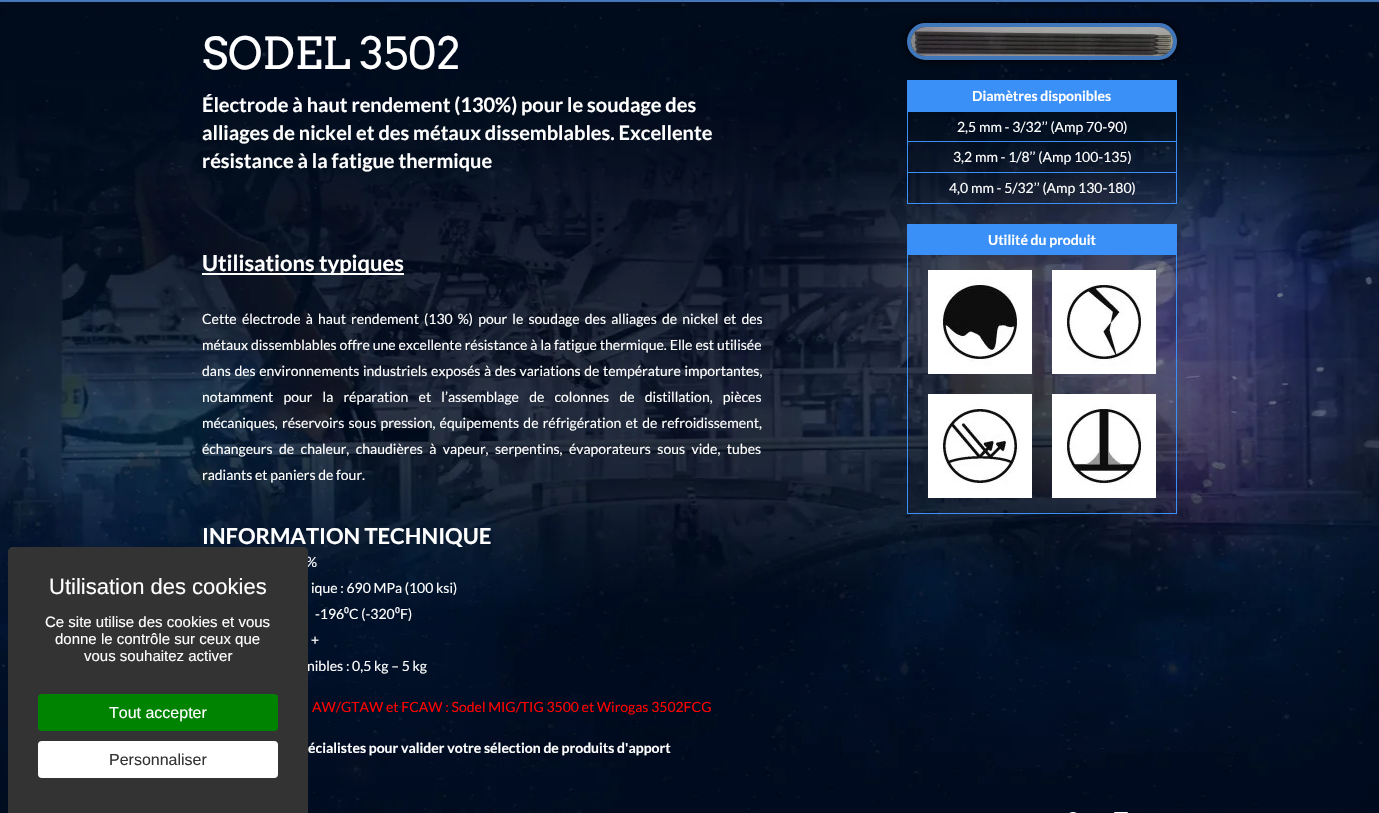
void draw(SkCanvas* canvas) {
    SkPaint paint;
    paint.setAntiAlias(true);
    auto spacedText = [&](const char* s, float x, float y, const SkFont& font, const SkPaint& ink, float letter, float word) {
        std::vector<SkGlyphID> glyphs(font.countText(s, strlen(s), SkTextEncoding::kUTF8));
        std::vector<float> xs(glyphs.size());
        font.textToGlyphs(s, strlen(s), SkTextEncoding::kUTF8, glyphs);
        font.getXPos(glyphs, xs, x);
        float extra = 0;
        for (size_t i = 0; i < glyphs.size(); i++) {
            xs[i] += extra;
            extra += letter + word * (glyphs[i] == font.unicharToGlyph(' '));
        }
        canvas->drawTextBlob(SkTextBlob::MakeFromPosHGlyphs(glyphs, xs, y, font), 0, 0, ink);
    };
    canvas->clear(0xFFFFFFFF);
    canvas->drawImageRect(SkImages::DeferredFromEncodedData(SkData::MakeFromFileName("img1.png")), SkRect::MakeXYWH(0, 0, 1379, 813), SkSamplingOptions());
    canvas->drawImageRect(SkImages::DeferredFromEncodedData(SkData::MakeFromFileName("img2.png")), SkRect::MakeXYWH(0, 15, 1379, 684), SkSamplingOptions());
    SkFont font1(fontMgr->matchFamilyStyle("Lato", SkFontStyle::Bold()), 22);
    font1.setSubpixel(true);
    paint.setColor(0xFFFFFFFF);
    canvas->drawString("INFORMATION TECHNIQUE", 202, 544, font1, paint);
    SkFont font2(fontMgr->matchFamilyStyle("Lato", SkFontStyle::Normal()), 14);
    font2.setSubpixel(true);
    canvas->drawString("%", 306, 567, font2, paint);
    paint.setColor(0xFF333333);
    canvas->drawPath(SkPathBuilder().moveTo(13, 547).lineTo(303, 547).cubicTo(306, 547, 308, 549, 308, 552).lineTo(308, 813).lineTo(8, 813).lineTo(8, 552).cubicTo(8, 549, 10, 547, 13, 547).close().detach(), paint);
    SkFont font3(fontMgr->matchFamilyStyle("Liberation Sans", SkFontStyle::Normal()), 22);
    font3.setSubpixel(true);
    paint.setColor(0xFFFFFFFF);
    canvas->drawString("Utilisation des cookies", 49, 594, font3, paint);
    SkFont font4(fontMgr->matchFamilyStyle("Liberation Sans", SkFontStyle::Normal()), 15);
    font4.setSubpixel(true);
    canvas->drawString("Ce site utilise des cookies et vous", 45, 627, font4, paint);
    canvas->drawString("donne le contrôle sur ceux que", 55, 644, font4, paint);
    canvas->drawString("vous souhaitez activer", 84, 661, font4, paint);
    paint.setColor(0xFF008300);
    canvas->drawRoundRect(SkRect::MakeXYWH(38, 694, 240, 37), 4, 4, paint);
    SkFont font5(fontMgr->matchFamilyStyle("Liberation Sans", SkFontStyle::Normal()), 16);
    font5.setSubpixel(true);
    paint.setColor(0xFFFFFFFF);
    canvas->drawString("Tout accepter", 109, 718, font5, paint);
    canvas->drawRoundRect(SkRect::MakeXYWH(38, 741, 240, 37), 4, 4, paint);
    paint.setColor(0xFF333333);
    canvas->drawString("Personnaliser", 109, 765, font5, paint);
    SkFont font6(fontMgr->matchFamilyStyle("Arvo", SkFontStyle::Normal()), 44);
    font6.setSubpixel(true);
    paint.setColor(0xFFFFFFFF);
    canvas->drawString("SODEL 3502", 202, 69, font6, paint);
    SkFont font7(fontMgr->matchFamilyStyle("Lato", SkFontStyle::Bold()), 20);
    font7.setSubpixel(true);
    canvas->drawString("Électrode à haut rendement (130%) pour le soudage des", 202, 112, font7, paint);
    canvas->drawString("alliages de nickel et des métaux dissemblables. Excellente", 202, 140, font7, paint);
    canvas->drawString("résistance à la fatigue thermique", 202, 168, font7, paint);
    canvas->drawRect(SkRect::MakeXYWH(202, 273, 202, 2), paint);
    canvas->drawString("Utilisations typiques", 202, 271, font1, paint);
    spacedText("Cette électrode à haut rendement (130 %) pour le soudage des alliages de nickel et des", 202, 324, font2, paint, 0, 2.5f);
    spacedText("métaux dissemblables offre une excellente résistance à la fatigue thermique. Elle est utilisée", 202, 350, font2, paint, 0, 0.25f);
    spacedText("dans des environnements industriels exposés à des variations de température importantes,", 202, 376, font2, paint, 0, 0.9f);
    spacedText("notamment pour la réparation et l’assemblage de colonnes de distillation, pièces", 202, 402, font2, paint, 0, 7.5f);
    spacedText("mécaniques, réservoirs sous pression, équipements de réfrigération et de refroidissement,", 202, 428, font2, paint, 0, 1.5f);
    spacedText("échangeurs de chaleur, chaudières à vapeur, serpentins, évaporateurs sous vide, tubes", 202, 454, font2, paint, 0, 3.75f);
    canvas->drawString("radiants et paniers de four.", 202, 480, font2, paint);
    canvas->drawString("ique : 690 MPa (100 ksi)", 311, 593, font2, paint);
    canvas->drawString("-196", 315, 619, font2, paint);
    SkFont font8(fontMgr->matchFamilyStyle("Noto Sans", SkFontStyle::Normal()), 14);
    font8.setSubpixel(true);
    canvas->drawString("⁰", 344, 619, font8, paint);
    canvas->drawString("C (-320", 349, 619, font2, paint);
    canvas->drawString("⁰", 395, 619, font8, paint);
    canvas->drawString("F)", 400, 619, font2, paint);
    canvas->drawString("+", 311, 645, font2, paint);
    canvas->drawString("nibles : 0,5 kg – 5 kg", 307, 671, font2, paint);
    paint.setColor(0xFFFF0000);
    canvas->drawString("AW/GTAW et FCAW : Sodel MIG/TIG 3500 et Wirogas 3502FCG", 312, 712, font2, paint);
    SkFont font9(fontMgr->matchFamilyStyle("Lato", SkFontStyle::Bold()), 14);
    font9.setSubpixel(true);
    paint.setColor(0xFFFFFFFF);
    canvas->drawString("écialistes pour valider votre sélection de produits d'apport", 308, 753, font9, paint);
    paint.setColor(0xFF000000);
    paint.setMaskFilter(SkMaskFilter::MakeBlur(kNormal_SkBlurStyle, 5));
    canvas->drawRoundRect(SkRect::MakeXYWH(907, 23, 270, 37), 18.5f, 18.5f, paint);
    paint.setMaskFilter(nullptr);
    paint.setStyle(SkPaint::kStroke_Style);
    paint.setStrokeWidth(4);
    paint.setColor(0xFF4077BB);
    canvas->drawRoundRect(SkRect::MakeXYWH(909, 25, 266, 33), 16.5f, 16.5f, paint);
    canvas->drawImageRect(SkImages::DeferredFromEncodedData(SkData::MakeFromFileName("img3.png")), SkRect::MakeXYWH(911, 27, 262, 29), SkSamplingOptions());
    paint.setStyle(SkPaint::kFill_Style);
    paint.setColor(0xFF3B90F8);
    canvas->drawRect(SkRect::MakeXYWH(908, 81, 269, 30), paint);
    canvas->drawRect(SkRect::MakeXYWH(907, 80, 270, 1), paint);
    canvas->drawRect(SkRect::MakeXYWH(907, 111, 270, 1), paint);
    canvas->drawRect(SkRect::MakeXYWH(907, 141, 270, 1), paint);
    canvas->drawRect(SkRect::MakeXYWH(907, 172, 270, 1), paint);
    canvas->drawRect(SkRect::MakeXYWH(1176, 172, 1, 32), paint);
    canvas->drawRect(SkRect::MakeXYWH(907, 203, 270, 1), paint);
    canvas->drawRect(SkRect::MakeXYWH(907, 172, 1, 32), paint);
    canvas->drawRect(SkRect::MakeXYWH(907, 141, 1, 32), paint);
    canvas->drawRect(SkRect::MakeXYWH(907, 111, 1, 31), paint);
    canvas->drawRect(SkRect::MakeXYWH(907, 80, 1, 32), paint);
    paint.setColor(0xFFFFFFFF);
    canvas->drawString("Diamètres disponibles", 972, 101, font9, paint);
    paint.setColor(0xFF3B90F8);
    canvas->drawRect(SkRect::MakeXYWH(1176, 141, 1, 32), paint);
    canvas->drawRect(SkRect::MakeXYWH(1176, 111, 1, 31), paint);
    paint.setColor(0xFFFFFFFF);
    canvas->drawString("2,5 mm - 3/32’’ (Amp 70-90)", 957, 132, font2, paint);
    canvas->drawString("3,2 mm - 1/8’’ (Amp 100-135)", 953, 162, font2, paint);
    canvas->drawString("4,0 mm - 5/32’’ (Amp 130-180)", 949, 193, font2, paint);
    paint.setColor(0xFF3B90F8);
    canvas->drawRect(SkRect::MakeXYWH(908, 225, 269, 29), paint);
    canvas->drawRect(SkRect::MakeXYWH(907, 224, 270, 1), paint);
    canvas->drawRect(SkRect::MakeXYWH(907, 254, 270, 1), paint);
    canvas->drawRect(SkRect::MakeXYWH(1176, 254, 1, 260), paint);
    canvas->drawRect(SkRect::MakeXYWH(907, 513, 270, 1), paint);
    canvas->drawRect(SkRect::MakeXYWH(907, 254, 1, 260), paint);
    canvas->drawRect(SkRect::MakeXYWH(907, 224, 1, 31), paint);
    paint.setColor(0xFFFFFFFF);
    canvas->drawString("Utilité du produit", 988, 245, font9, paint);
    canvas->drawImageRect(SkImages::DeferredFromEncodedData(SkData::MakeFromFileName("img4.png")), SkRect::MakeXYWH(928, 270, 104, 104), SkSamplingOptions());
    canvas->drawImageRect(SkImages::DeferredFromEncodedData(SkData::MakeFromFileName("img5.png")), SkRect::MakeXYWH(1052, 270, 104, 104), SkSamplingOptions());
    canvas->drawImageRect(SkImages::DeferredFromEncodedData(SkData::MakeFromFileName("img6.png")), SkRect::MakeXYWH(928, 394, 104, 104), SkSamplingOptions());
    canvas->drawImageRect(SkImages::DeferredFromEncodedData(SkData::MakeFromFileName("img7.png")), SkRect::MakeXYWH(1052, 394, 104, 104), SkSamplingOptions());
    canvas->drawImageRect(SkImages::DeferredFromEncodedData(SkData::MakeFromFileName("img8.png")), SkRect::MakeXYWH(1069, 812, 8, 1), SkSamplingOptions());
    canvas->drawImageRect(SkImages::DeferredFromEncodedData(SkData::MakeFromFileName("img9.png")), SkRect::MakeXYWH(1114, 812, 14, 1), SkSamplingOptions());
}
